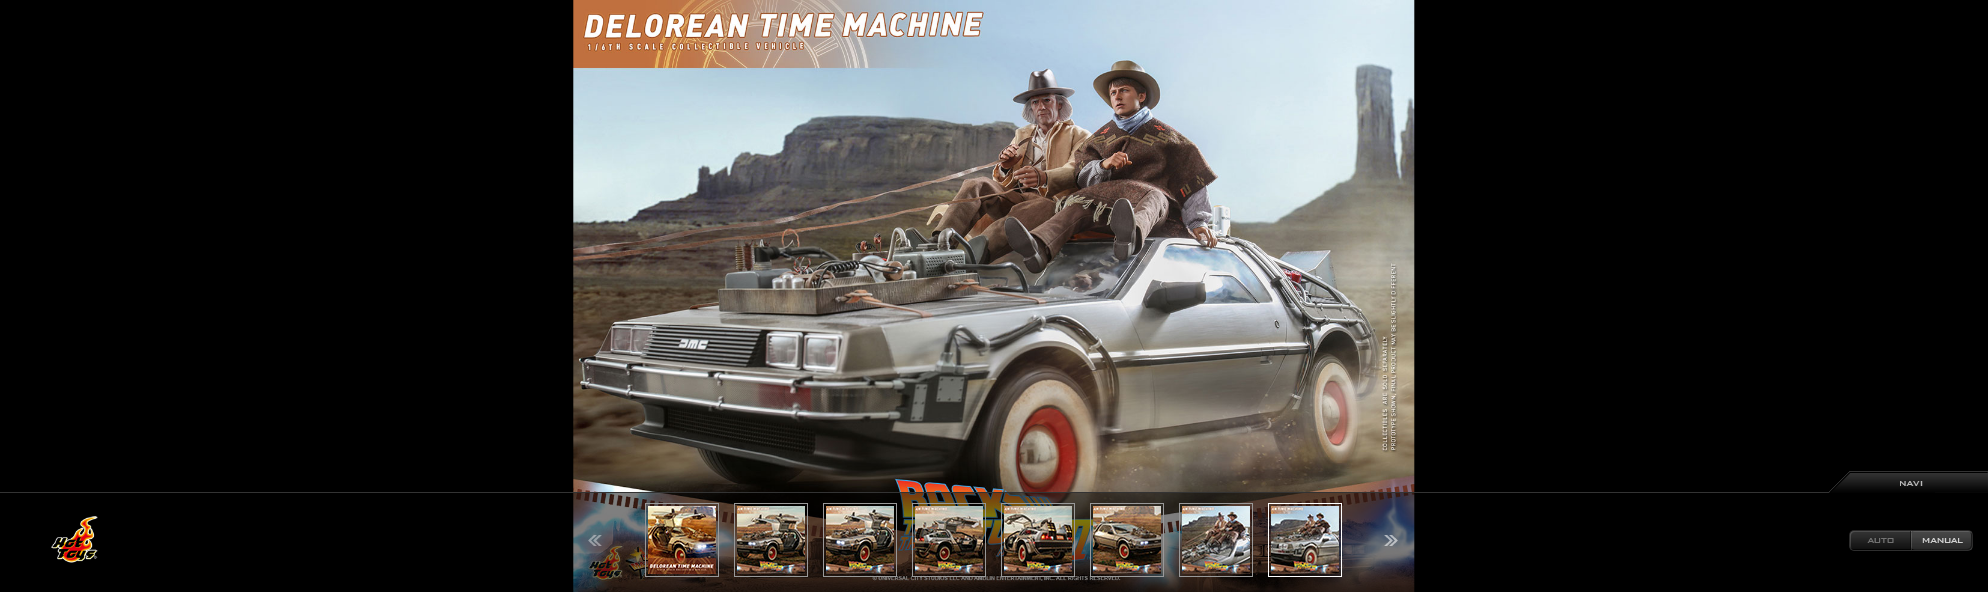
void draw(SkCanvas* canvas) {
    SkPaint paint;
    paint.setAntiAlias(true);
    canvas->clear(0xFF000000);
    canvas->drawImageRect(SkImages::DeferredFromEncodedData(SkData::MakeFromFileName("img1.png")), SkRect::MakeXYWH(573, 0, 842, 592), SkSamplingOptions());
    paint.setColor(0x80000000);
    canvas->drawRect(SkRect::MakeXYWH(573, 493, 842, 99), paint);
    paint.setColor(0xFF333333);
    canvas->drawRect(SkRect::MakeXYWH(0, 492, 1829, 1), paint);
    canvas->drawImageRect(SkImages::DeferredFromEncodedData(SkData::MakeFromFileName("img2.png")), SkRect::MakeXYWH(1829, 471, 159, 22), SkSamplingOptions());
    canvas->drawImageRect(SkImages::DeferredFromEncodedData(SkData::MakeFromFileName("img3.png")), SkRect::MakeXYWH(51, 516, 47, 47), SkSamplingOptions());
    canvas->drawImageRect(SkImages::DeferredFromEncodedData(SkData::MakeFromFileName("img4.png")), SkRect::MakeXYWH(588, 535, 14, 11), SkSamplingOptions());
    paint.setStyle(SkPaint::kStroke_Style);
    paint.setStrokeWidth(1);
    paint.setColor(0xFF999999);
    canvas->drawRect(SkRect::MakeXYWH(645.5f, 503.5f, 73, 73), paint);
    canvas->drawImageRect(SkImages::DeferredFromEncodedData(SkData::MakeFromFileName("img5.png")), SkRect::MakeXYWH(648, 506, 68, 68), SkSamplingOptions());
    canvas->drawRect(SkRect::MakeXYWH(734.5f, 503.5f, 73, 73), paint);
    canvas->drawImageRect(SkImages::DeferredFromEncodedData(SkData::MakeFromFileName("img6.png")), SkRect::MakeXYWH(737, 506, 68, 68), SkSamplingOptions());
    canvas->drawRect(SkRect::MakeXYWH(823.5f, 503.5f, 73, 73), paint);
    canvas->drawImageRect(SkImages::DeferredFromEncodedData(SkData::MakeFromFileName("img7.png")), SkRect::MakeXYWH(826, 506, 68, 68), SkSamplingOptions());
    canvas->drawRect(SkRect::MakeXYWH(912.5f, 503.5f, 73, 73), paint);
    canvas->drawImageRect(SkImages::DeferredFromEncodedData(SkData::MakeFromFileName("img8.png")), SkRect::MakeXYWH(915, 506, 68, 68), SkSamplingOptions());
    canvas->drawRect(SkRect::MakeXYWH(1001.5f, 503.5f, 73, 73), paint);
    canvas->drawImageRect(SkImages::DeferredFromEncodedData(SkData::MakeFromFileName("img9.png")), SkRect::MakeXYWH(1004, 506, 68, 68), SkSamplingOptions());
    canvas->drawRect(SkRect::MakeXYWH(1090.5f, 503.5f, 73, 73), paint);
    canvas->drawImageRect(SkImages::DeferredFromEncodedData(SkData::MakeFromFileName("img10.png")), SkRect::MakeXYWH(1093, 506, 68, 68), SkSamplingOptions());
    canvas->drawRect(SkRect::MakeXYWH(1179.5f, 503.5f, 73, 73), paint);
    canvas->drawImageRect(SkImages::DeferredFromEncodedData(SkData::MakeFromFileName("img11.png")), SkRect::MakeXYWH(1182, 506, 68, 68), SkSamplingOptions());
    paint.setColor(0xFFFFFFFF);
    canvas->drawRect(SkRect::MakeXYWH(1268.5f, 503.5f, 73, 73), paint);
    canvas->drawImageRect(SkImages::DeferredFromEncodedData(SkData::MakeFromFileName("img12.png")), SkRect::MakeXYWH(1271, 506, 68, 68), SkSamplingOptions());
    canvas->drawImageRect(SkImages::DeferredFromEncodedData(SkData::MakeFromFileName("img13.png")), SkRect::MakeXYWH(1384, 535, 14, 11), SkSamplingOptions());
    canvas->drawImageRect(SkImages::DeferredFromEncodedData(SkData::MakeFromFileName("img14.png")), SkRect::MakeXYWH(1849, 530, 62, 21), SkSamplingOptions());
    canvas->drawImageRect(SkImages::DeferredFromEncodedData(SkData::MakeFromFileName("img15.png")), SkRect::MakeXYWH(1911, 530, 62, 21), SkSamplingOptions());
}
